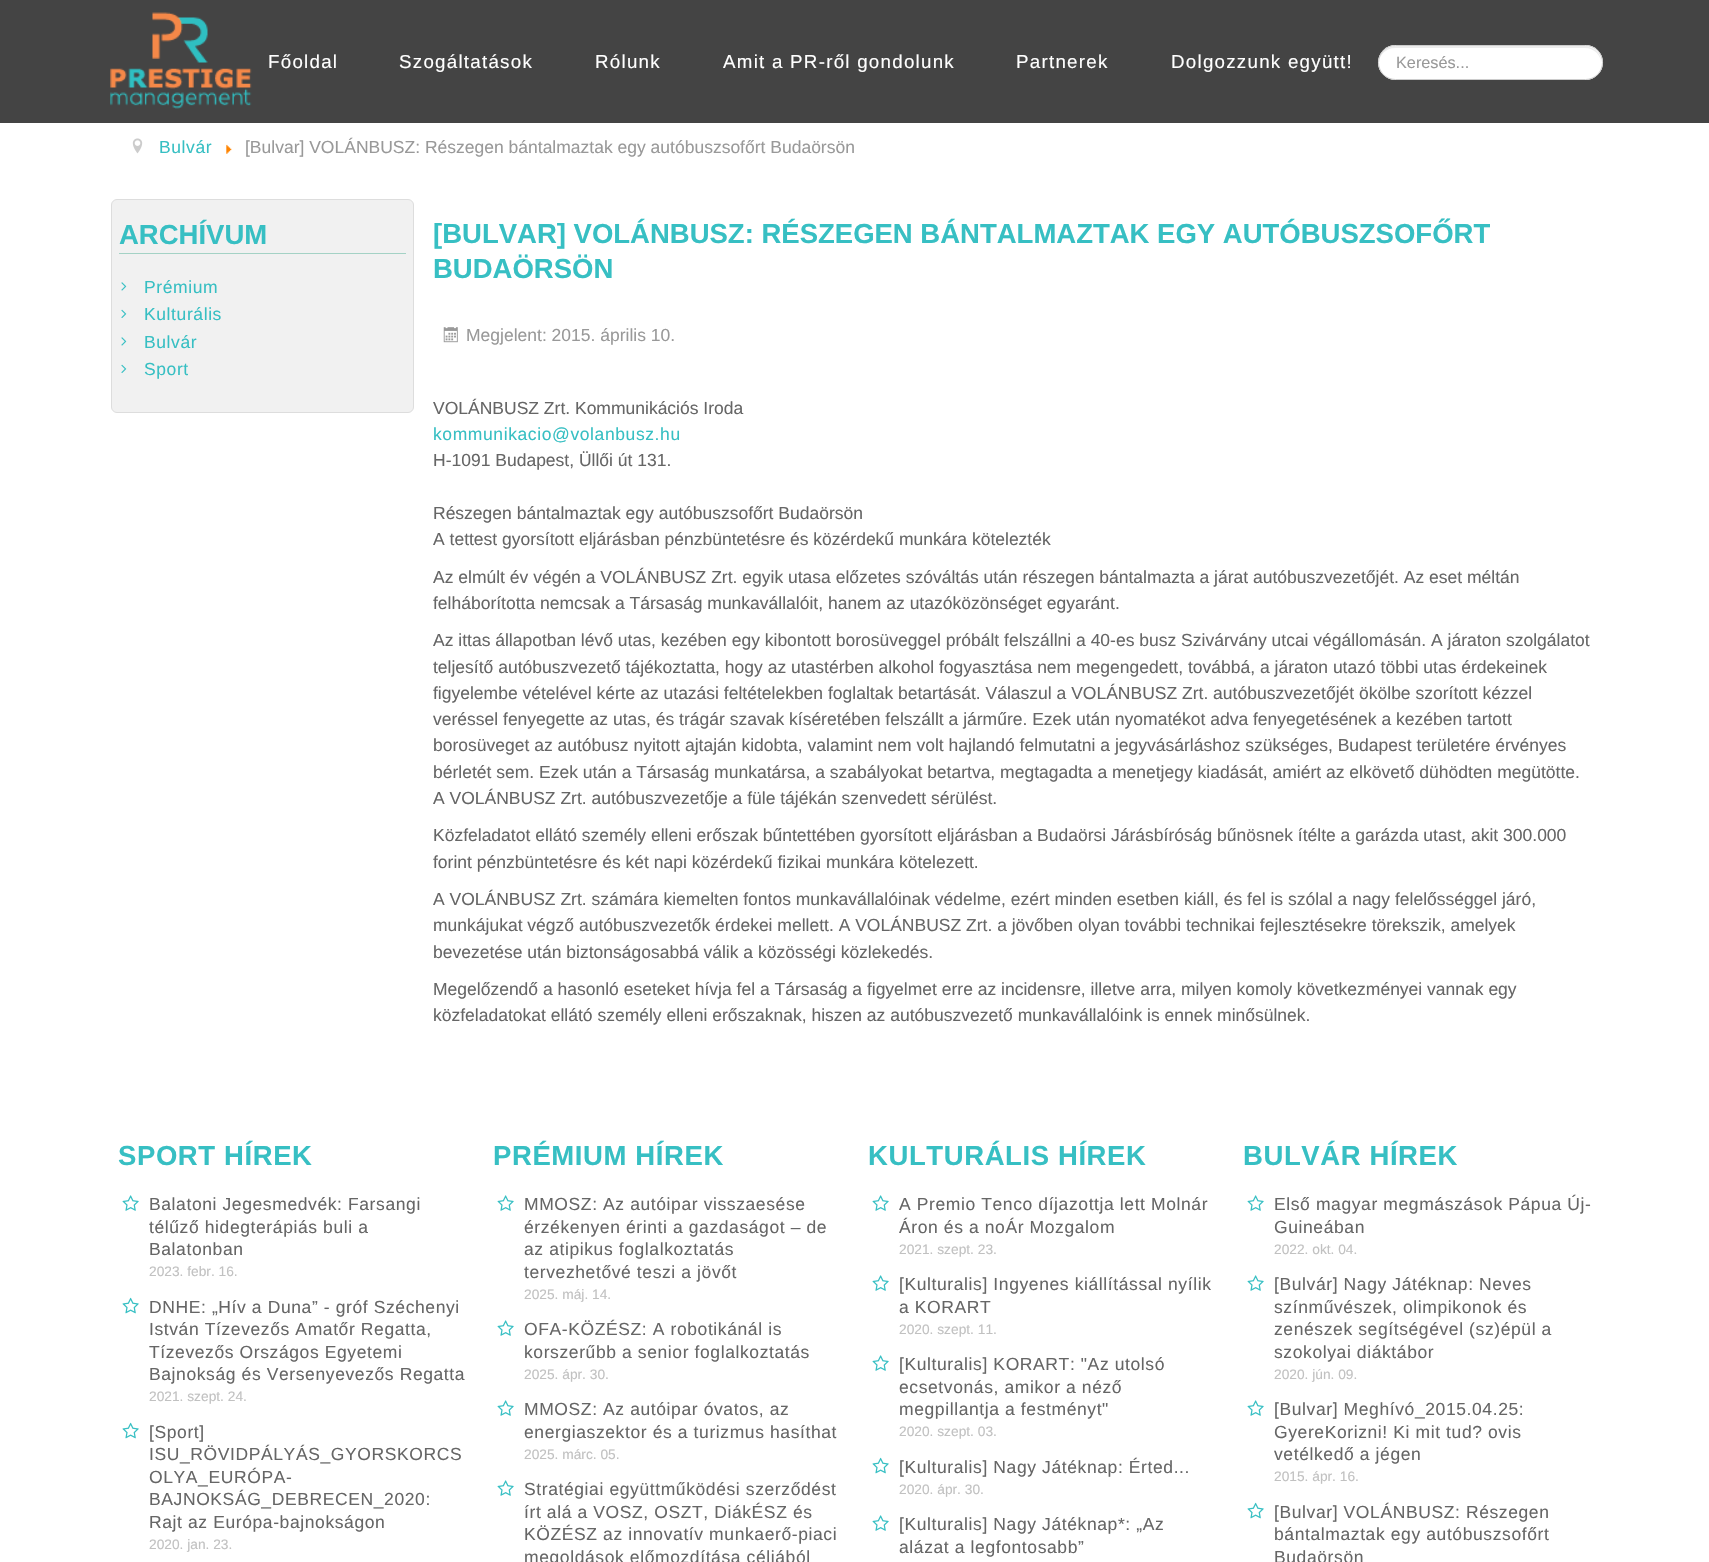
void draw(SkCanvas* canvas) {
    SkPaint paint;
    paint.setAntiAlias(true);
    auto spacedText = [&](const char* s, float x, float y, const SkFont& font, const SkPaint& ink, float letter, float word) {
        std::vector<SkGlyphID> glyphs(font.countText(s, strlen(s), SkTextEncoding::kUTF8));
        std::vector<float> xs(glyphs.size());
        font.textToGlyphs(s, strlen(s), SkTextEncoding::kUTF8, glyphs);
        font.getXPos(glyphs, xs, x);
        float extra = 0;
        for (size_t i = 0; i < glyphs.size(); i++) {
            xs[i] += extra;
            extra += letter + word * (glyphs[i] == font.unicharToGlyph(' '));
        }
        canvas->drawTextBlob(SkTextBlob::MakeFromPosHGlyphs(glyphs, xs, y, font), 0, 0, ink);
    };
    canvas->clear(0xFFFFFFFF);
    paint.setColor(0xFF444444);
    canvas->drawRect(SkRect::MakeXYWH(0, 0, 1709, 123), paint);
    canvas->drawImageRect(SkImages::DeferredFromEncodedData(SkData::MakeFromFileName("img1.png")), SkRect::MakeXYWH(110, 12, 142, 97), SkSamplingOptions());
    SkFont font1(fontMgr->matchFamilyStyle("Liberation Sans", SkFontStyle::Normal()), 18.75f);
    font1.setSubpixel(true);
    paint.setColor(0xFFFFFFFF);
    spacedText("Főoldal", 268, 68, font1, paint, 1.25f, 0);
    spacedText("Szogáltatások", 399, 68, font1, paint, 1.25f, 0);
    spacedText("Rólunk", 595, 68, font1, paint, 1.25f, 0);
    spacedText("Amit a PR-ről gondolunk", 723, 68, font1, paint, 1.25f, 0);
    spacedText("Partnerek", 1016, 68, font1, paint, 1.25f, 0);
    spacedText("Dolgozzunk együtt!", 1171, 68, font1, paint, 1.25f, 0);
    canvas->drawRoundRect(SkRect::MakeXYWH(1378, 45, 225, 35), 17.5f, 17.5f, paint);
    paint.setColor(0xFFECECEC);
    canvas->drawPath(SkPathBuilder().moveTo(1395, 48).lineTo(1585, 48).cubicTo(1594, 48, 1601, 55, 1601, 63).cubicTo(1602, 39, 1565, 46, 1553, 46).lineTo(1427, 46).cubicTo(1415, 46, 1378, 39, 1379, 63).cubicTo(1379, 55, 1386, 48, 1395, 48).close().detach(), paint);
    paint.setStyle(SkPaint::kStroke_Style);
    paint.setStrokeWidth(1);
    paint.setColor(0xFFCCCCCC);
    canvas->drawRoundRect(SkRect::MakeXYWH(1378.5f, 45.5f, 224, 34), 17, 17, paint);
    SkFont font2(fontMgr->matchFamilyStyle("Liberation Sans", SkFontStyle::Normal()), 16.25f);
    font2.setSubpixel(true);
    paint.setStyle(SkPaint::kFill_Style);
    paint.setColor(0xFF999999);
    canvas->drawString("Keresés...", 1396, 68, font2, paint);
    canvas->drawImageRect(SkImages::DeferredFromEncodedData(SkData::MakeFromFileName("img2.png")), SkRect::MakeXYWH(132, 138, 11, 16), SkSamplingOptions());
    SkFont font3(fontMgr->matchFamilyStyle("Liberation Sans", SkFontStyle::Normal()), 17.5f);
    font3.setSubpixel(true);
    paint.setColor(0xFF37BFC3);
    spacedText("Bulvár", 159, 153, font3, paint, 0.6f, 0);
    canvas->drawImageRect(SkImages::DeferredFromEncodedData(SkData::MakeFromFileName("img3.png")), SkRect::MakeXYWH(226, 144, 6, 10), SkSamplingOptions());
    paint.setColor(0xFF999999);
    canvas->drawString("[Bulvar] VOLÁNBUSZ: Részegen bántalmaztak egy autóbuszsofőrt Budaörsön", 245, 153, font3, paint);
    paint.setColor(0xFFF1F1F1);
    canvas->drawRoundRect(SkRect::MakeXYWH(111.5f, 199.5f, 302, 213), 5.5f, 5.5f, paint);
    paint.setStyle(SkPaint::kStroke_Style);
    paint.setColor(0xFFDDDDDD);
    canvas->drawRoundRect(SkRect::MakeXYWH(111.5f, 199.5f, 302, 213), 5.5f, 5.5f, paint);
    paint.setStyle(SkPaint::kFill_Style);
    paint.setColor(0xFFA4D2C5);
    canvas->drawRect(SkRect::MakeXYWH(119, 253, 287, 1), paint);
    SkFont font4(fontMgr->matchFamilyStyle("Liberation Sans", SkFontStyle::Bold()), 27.5f);
    font4.setSubpixel(true);
    paint.setColor(0xFF37BFC3);
    canvas->drawString("ARCHÍVUM", 119, 244, font4, paint);
    canvas->drawImageRect(SkImages::DeferredFromEncodedData(SkData::MakeFromFileName("img4.png")), SkRect::MakeXYWH(121, 282, 6, 9), SkSamplingOptions());
    spacedText("Prémium", 144, 293, font3, paint, 0.6f, 0);
    canvas->drawImageRect(SkImages::DeferredFromEncodedData(SkData::MakeFromFileName("img5.png")), SkRect::MakeXYWH(121, 309, 6, 9), SkSamplingOptions());
    spacedText("Kulturális", 144, 320, font3, paint, 0.6f, 0);
    canvas->drawImageRect(SkImages::DeferredFromEncodedData(SkData::MakeFromFileName("img4.png")), SkRect::MakeXYWH(121, 337, 6, 9), SkSamplingOptions());
    spacedText("Bulvár", 144, 348, font3, paint, 0.6f, 0);
    canvas->drawImageRect(SkImages::DeferredFromEncodedData(SkData::MakeFromFileName("img5.png")), SkRect::MakeXYWH(121, 364, 6, 9), SkSamplingOptions());
    spacedText("Sport", 144, 375, font3, paint, 0.6f, 0);
    canvas->drawString("[BULVAR] VOLÁNBUSZ: RÉSZEGEN BÁNTALMAZTAK EGY AUTÓBUSZSOFŐRT", 433, 243, font4, paint);
    canvas->drawString("BUDAÖRSÖN", 433, 278, font4, paint);
    canvas->drawImageRect(SkImages::DeferredFromEncodedData(SkData::MakeFromFileName("img6.png")), SkRect::MakeXYWH(443, 327, 15, 16), SkSamplingOptions());
    paint.setColor(0xFF999999);
    canvas->drawString("Megjelent: 2015. április 10.", 466, 341, font3, paint);
    paint.setColor(0xFF666666);
    canvas->drawString("VOLÁNBUSZ Zrt. Kommunikációs Iroda", 433, 414, font3, paint);
    paint.setColor(0xFF37BFC3);
    spacedText("kommunikacio@volanbusz.hu", 433, 440, font3, paint, 0.6f, 0);
    paint.setColor(0xFF666666);
    canvas->drawString("H-1091 Budapest, Üllői út 131.", 433, 466, font3, paint);
    canvas->drawString("Részegen bántalmaztak egy autóbuszsofőrt Budaörsön", 433, 519, font3, paint);
    canvas->drawString("A tettest gyorsított eljárásban pénzbüntetésre és közérdekű munkára kötelezték", 433, 545, font3, paint);
    canvas->drawString("Az elmúlt év végén a VOLÁNBUSZ Zrt. egyik utasa előzetes szóváltás után részegen bántalmazta a járat autóbuszvezetőjét. Az eset méltán", 433, 583, font3, paint);
    canvas->drawString("felháborította nemcsak a Társaság munkavállalóit, hanem az utazóközönséget egyaránt.", 433, 609, font3, paint);
    canvas->drawString("Az ittas állapotban lévő utas, kezében egy kibontott borosüveggel próbált felszállni a 40-es busz Szivárvány utcai végállomásán. A járaton szolgálatot", 433, 646, font3, paint);
    canvas->drawString("teljesítő autóbuszvezető tájékoztatta, hogy az utastérben alkohol fogyasztása nem megengedett, továbbá, a járaton utazó többi utas érdekeinek", 433, 673, font3, paint);
    canvas->drawString("figyelembe vételével kérte az utazási feltételekben foglaltak betartását. Válaszul a VOLÁNBUSZ Zrt. autóbuszvezetőjét ökölbe szorított kézzel", 433, 699, font3, paint);
    canvas->drawString("veréssel fenyegette az utas, és trágár szavak kíséretében felszállt a járműre. Ezek után nyomatékot adva fenyegetésének a kezében tartott", 433, 725, font3, paint);
    canvas->drawString("borosüveget az autóbusz nyitott ajtaján kidobta, valamint nem volt hajlandó felmutatni a jegyvásárláshoz szükséges, Budapest területére érvényes", 433, 751, font3, paint);
    canvas->drawString("bérletét sem. Ezek után a Társaság munkatársa, a szabályokat betartva, megtagadta a menetjegy kiadását, amiért az elkövető dühödten megütötte.", 433, 778, font3, paint);
    canvas->drawString("A VOLÁNBUSZ Zrt. autóbuszvezetője a füle tájékán szenvedett sérülést.", 433, 804, font3, paint);
    canvas->drawString("Közfeladatot ellátó személy elleni erőszak bűntettében gyorsított eljárásban a Budaörsi Járásbíróság bűnösnek ítélte a garázda utast, akit 300.000", 433, 841, font3, paint);
    canvas->drawString("forint pénzbüntetésre és két napi közérdekű fizikai munkára kötelezett.", 433, 868, font3, paint);
    canvas->drawString("A VOLÁNBUSZ Zrt. számára kiemelten fontos munkavállalóinak védelme, ezért minden esetben kiáll, és fel is szólal a nagy felelősséggel járó,", 433, 905, font3, paint);
    canvas->drawString("munkájukat végző autóbuszvezetők érdekei mellett. A VOLÁNBUSZ Zrt. a jövőben olyan további technikai fejlesztésekre törekszik, amelyek", 433, 931, font3, paint);
    canvas->drawString("bevezetése után biztonságosabbá válik a közösségi közlekedés.", 433, 958, font3, paint);
    canvas->drawString("Megelőzendő a hasonló eseteket hívja fel a Társaság a figyelmet erre az incidensre, illetve arra, milyen komoly következményei vannak egy", 433, 995, font3, paint);
    canvas->drawString("közfeladatokat ellátó személy elleni erőszaknak, hiszen az autóbuszvezető munkavállalóink is ennek minősülnek.", 433, 1021, font3, paint);
    paint.setColor(0xFF37BFC3);
    spacedText("SPORT HÍREK", 118, 1165, font4, paint, 0.6f, 0);
    canvas->drawImageRect(SkImages::DeferredFromEncodedData(SkData::MakeFromFileName("img7.png")), SkRect::MakeXYWH(122, 1195, 17, 16), SkSamplingOptions());
    paint.setColor(0xFF666666);
    spacedText("Balatoni Jegesmedvék: Farsangi", 149, 1210, font3, paint, 0.6f, 0);
    spacedText("télűző hidegterápiás buli a", 149, 1233, font3, paint, 0.6f, 0);
    spacedText("Balatonban", 149, 1255, font3, paint, 0.6f, 0);
    SkFont font5(fontMgr->matchFamilyStyle("Liberation Sans", SkFontStyle::Normal()), 13.75f);
    font5.setSubpixel(true);
    paint.setColor(0xFFC1C1C1);
    canvas->drawString("2023. febr. 16.", 149, 1276, font5, paint);
    canvas->drawImageRect(SkImages::DeferredFromEncodedData(SkData::MakeFromFileName("img8.png")), SkRect::MakeXYWH(122, 1297, 17, 17), SkSamplingOptions());
    paint.setColor(0xFF666666);
    spacedText("DNHE: „Hív a Duna” - gróf Széchenyi", 149, 1313, font3, paint, 0.6f, 0);
    spacedText("István Tízevezős Amatőr Regatta,", 149, 1335, font3, paint, 0.6f, 0);
    spacedText("Tízevezős Országos Egyetemi", 149, 1358, font3, paint, 0.6f, 0);
    spacedText("Bajnokság és Versenyevezős Regatta", 149, 1380, font3, paint, 0.6f, 0);
    paint.setColor(0xFFC1C1C1);
    canvas->drawString("2021. szept. 24.", 149, 1401, font5, paint);
    canvas->drawImageRect(SkImages::DeferredFromEncodedData(SkData::MakeFromFileName("img8.png")), SkRect::MakeXYWH(122, 1422, 17, 17), SkSamplingOptions());
    paint.setColor(0xFF666666);
    spacedText("[Sport]", 149, 1438, font3, paint, 0.6f, 0);
    spacedText("ISU_RÖVIDPÁLYÁS_GYORSKORCS", 149, 1460, font3, paint, 0.6f, 0);
    spacedText("OLYA_EURÓPA-", 149, 1483, font3, paint, 0.6f, 0);
    spacedText("BAJNOKSÁG_DEBRECEN_2020:", 149, 1505, font3, paint, 0.6f, 0);
    spacedText("Rajt az Európa-bajnokságon", 149, 1528, font3, paint, 0.6f, 0);
    paint.setColor(0xFFC1C1C1);
    canvas->drawString("2020. jan. 23.", 149, 1549, font5, paint);
    paint.setColor(0xFF37BFC3);
    spacedText("PRÉMIUM HÍREK", 493, 1165, font4, paint, 0.6f, 0);
    canvas->drawImageRect(SkImages::DeferredFromEncodedData(SkData::MakeFromFileName("img7.png")), SkRect::MakeXYWH(497, 1195, 17, 16), SkSamplingOptions());
    paint.setColor(0xFF666666);
    spacedText("MMOSZ: Az autóipar visszaesése", 524, 1210, font3, paint, 0.6f, 0);
    spacedText("érzékenyen érinti a gazdaságot – de", 524, 1233, font3, paint, 0.6f, 0);
    spacedText("az atipikus foglalkoztatás", 524, 1255, font3, paint, 0.6f, 0);
    spacedText("tervezhetővé teszi a jövőt", 524, 1278, font3, paint, 0.6f, 0);
    paint.setColor(0xFFC1C1C1);
    canvas->drawString("2025. máj. 14.", 524, 1299, font5, paint);
    canvas->drawImageRect(SkImages::DeferredFromEncodedData(SkData::MakeFromFileName("img7.png")), SkRect::MakeXYWH(497, 1320, 17, 16), SkSamplingOptions());
    paint.setColor(0xFF666666);
    spacedText("OFA-KÖZÉSZ: A robotikánál is", 524, 1335, font3, paint, 0.6f, 0);
    spacedText("korszerűbb a senior foglalkoztatás", 524, 1358, font3, paint, 0.6f, 0);
    paint.setColor(0xFFC1C1C1);
    canvas->drawString("2025. ápr. 30.", 524, 1379, font5, paint);
    canvas->drawImageRect(SkImages::DeferredFromEncodedData(SkData::MakeFromFileName("img7.png")), SkRect::MakeXYWH(497, 1400, 17, 16), SkSamplingOptions());
    paint.setColor(0xFF666666);
    spacedText("MMOSZ: Az autóipar óvatos, az", 524, 1415, font3, paint, 0.6f, 0);
    spacedText("energiaszektor és a turizmus hasíthat", 524, 1438, font3, paint, 0.6f, 0);
    paint.setColor(0xFFC1C1C1);
    canvas->drawString("2025. márc. 05.", 524, 1459, font5, paint);
    canvas->drawImageRect(SkImages::DeferredFromEncodedData(SkData::MakeFromFileName("img7.png")), SkRect::MakeXYWH(497, 1480, 17, 16), SkSamplingOptions());
    paint.setColor(0xFF666666);
    spacedText("Stratégiai együttműködési szerződést", 524, 1495, font3, paint, 0.6f, 0);
    spacedText("írt alá a VOSZ, OSZT, DiákÉSZ és", 524, 1518, font3, paint, 0.6f, 0);
    spacedText("KÖZÉSZ az innovatív munkaerő-piaci", 524, 1540, font3, paint, 0.6f, 0);
    spacedText("megoldások előmozdítása céljából", 524, 1563, font3, paint, 0.6f, 0);
    paint.setColor(0xFF37BFC3);
    spacedText("KULTURÁLIS HÍREK", 868, 1165, font4, paint, 0.6f, 0);
    canvas->drawImageRect(SkImages::DeferredFromEncodedData(SkData::MakeFromFileName("img7.png")), SkRect::MakeXYWH(872, 1195, 17, 16), SkSamplingOptions());
    paint.setColor(0xFF666666);
    spacedText("A Premio Tenco díjazottja lett Molnár", 899, 1210, font3, paint, 0.6f, 0);
    spacedText("Áron és a noÁr Mozgalom", 899, 1233, font3, paint, 0.6f, 0);
    paint.setColor(0xFFC1C1C1);
    canvas->drawString("2021. szept. 23.", 899, 1254, font5, paint);
    canvas->drawImageRect(SkImages::DeferredFromEncodedData(SkData::MakeFromFileName("img7.png")), SkRect::MakeXYWH(872, 1275, 17, 16), SkSamplingOptions());
    paint.setColor(0xFF666666);
    spacedText("[Kulturalis] Ingyenes kiállítással nyílik", 899, 1290, font3, paint, 0.6f, 0);
    spacedText("a KORART", 899, 1313, font3, paint, 0.6f, 0);
    paint.setColor(0xFFC1C1C1);
    canvas->drawString("2020. szept. 11.", 899, 1334, font5, paint);
    canvas->drawImageRect(SkImages::DeferredFromEncodedData(SkData::MakeFromFileName("img7.png")), SkRect::MakeXYWH(872, 1355, 17, 16), SkSamplingOptions());
    paint.setColor(0xFF666666);
    spacedText("[Kulturalis] KORART: \"Az utolsó", 899, 1370, font3, paint, 0.6f, 0);
    spacedText("ecsetvonás, amikor a néző", 899, 1393, font3, paint, 0.6f, 0);
    spacedText("megpillantja a festményt\"", 899, 1415, font3, paint, 0.6f, 0);
    paint.setColor(0xFFC1C1C1);
    canvas->drawString("2020. szept. 03.", 899, 1436, font5, paint);
    canvas->drawImageRect(SkImages::DeferredFromEncodedData(SkData::MakeFromFileName("img8.png")), SkRect::MakeXYWH(872, 1457, 17, 17), SkSamplingOptions());
    paint.setColor(0xFF666666);
    spacedText("[Kulturalis] Nagy Játéknap: Érted...", 899, 1473, font3, paint, 0.6f, 0);
    paint.setColor(0xFFC1C1C1);
    canvas->drawString("2020. ápr. 30.", 899, 1494, font5, paint);
    canvas->drawImageRect(SkImages::DeferredFromEncodedData(SkData::MakeFromFileName("img7.png")), SkRect::MakeXYWH(872, 1515, 17, 16), SkSamplingOptions());
    paint.setColor(0xFF666666);
    spacedText("[Kulturalis] Nagy Játéknap*: „Az", 899, 1530, font3, paint, 0.6f, 0);
    spacedText("alázat a legfontosabb”", 899, 1553, font3, paint, 0.6f, 0);
    paint.setColor(0xFF37BFC3);
    spacedText("BULVÁR HÍREK", 1243, 1165, font4, paint, 0.6f, 0);
    canvas->drawImageRect(SkImages::DeferredFromEncodedData(SkData::MakeFromFileName("img7.png")), SkRect::MakeXYWH(1247, 1195, 17, 16), SkSamplingOptions());
    paint.setColor(0xFF666666);
    spacedText("Első magyar megmászások Pápua Új-", 1274, 1210, font3, paint, 0.6f, 0);
    spacedText("Guineában", 1274, 1233, font3, paint, 0.6f, 0);
    paint.setColor(0xFFC1C1C1);
    canvas->drawString("2022. okt. 04.", 1274, 1254, font5, paint);
    canvas->drawImageRect(SkImages::DeferredFromEncodedData(SkData::MakeFromFileName("img7.png")), SkRect::MakeXYWH(1247, 1275, 17, 16), SkSamplingOptions());
    paint.setColor(0xFF666666);
    spacedText("[Bulvár] Nagy Játéknap: Neves", 1274, 1290, font3, paint, 0.6f, 0);
    spacedText("színművészek, olimpikonok és", 1274, 1313, font3, paint, 0.6f, 0);
    spacedText("zenészek segítségével (sz)épül a", 1274, 1335, font3, paint, 0.6f, 0);
    spacedText("szokolyai diáktábor", 1274, 1358, font3, paint, 0.6f, 0);
    paint.setColor(0xFFC1C1C1);
    canvas->drawString("2020. jún. 09.", 1274, 1379, font5, paint);
    canvas->drawImageRect(SkImages::DeferredFromEncodedData(SkData::MakeFromFileName("img7.png")), SkRect::MakeXYWH(1247, 1400, 17, 16), SkSamplingOptions());
    paint.setColor(0xFF666666);
    spacedText("[Bulvar] Meghívó_2015.04.25:", 1274, 1415, font3, paint, 0.6f, 0);
    spacedText("GyereKorizni! Ki mit tud? ovis", 1274, 1438, font3, paint, 0.6f, 0);
    spacedText("vetélkedő a jégen", 1274, 1460, font3, paint, 0.6f, 0);
    paint.setColor(0xFFC1C1C1);
    canvas->drawString("2015. ápr. 16.", 1274, 1481, font5, paint);
    canvas->drawImageRect(SkImages::DeferredFromEncodedData(SkData::MakeFromFileName("img8.png")), SkRect::MakeXYWH(1247, 1502, 17, 17), SkSamplingOptions());
    paint.setColor(0xFF666666);
    spacedText("[Bulvar] VOLÁNBUSZ: Részegen", 1274, 1518, font3, paint, 0.6f, 0);
    spacedText("bántalmaztak egy autóbuszsofőrt", 1274, 1540, font3, paint, 0.6f, 0);
    spacedText("Budaörsön", 1274, 1563, font3, paint, 0.6f, 0);
}
